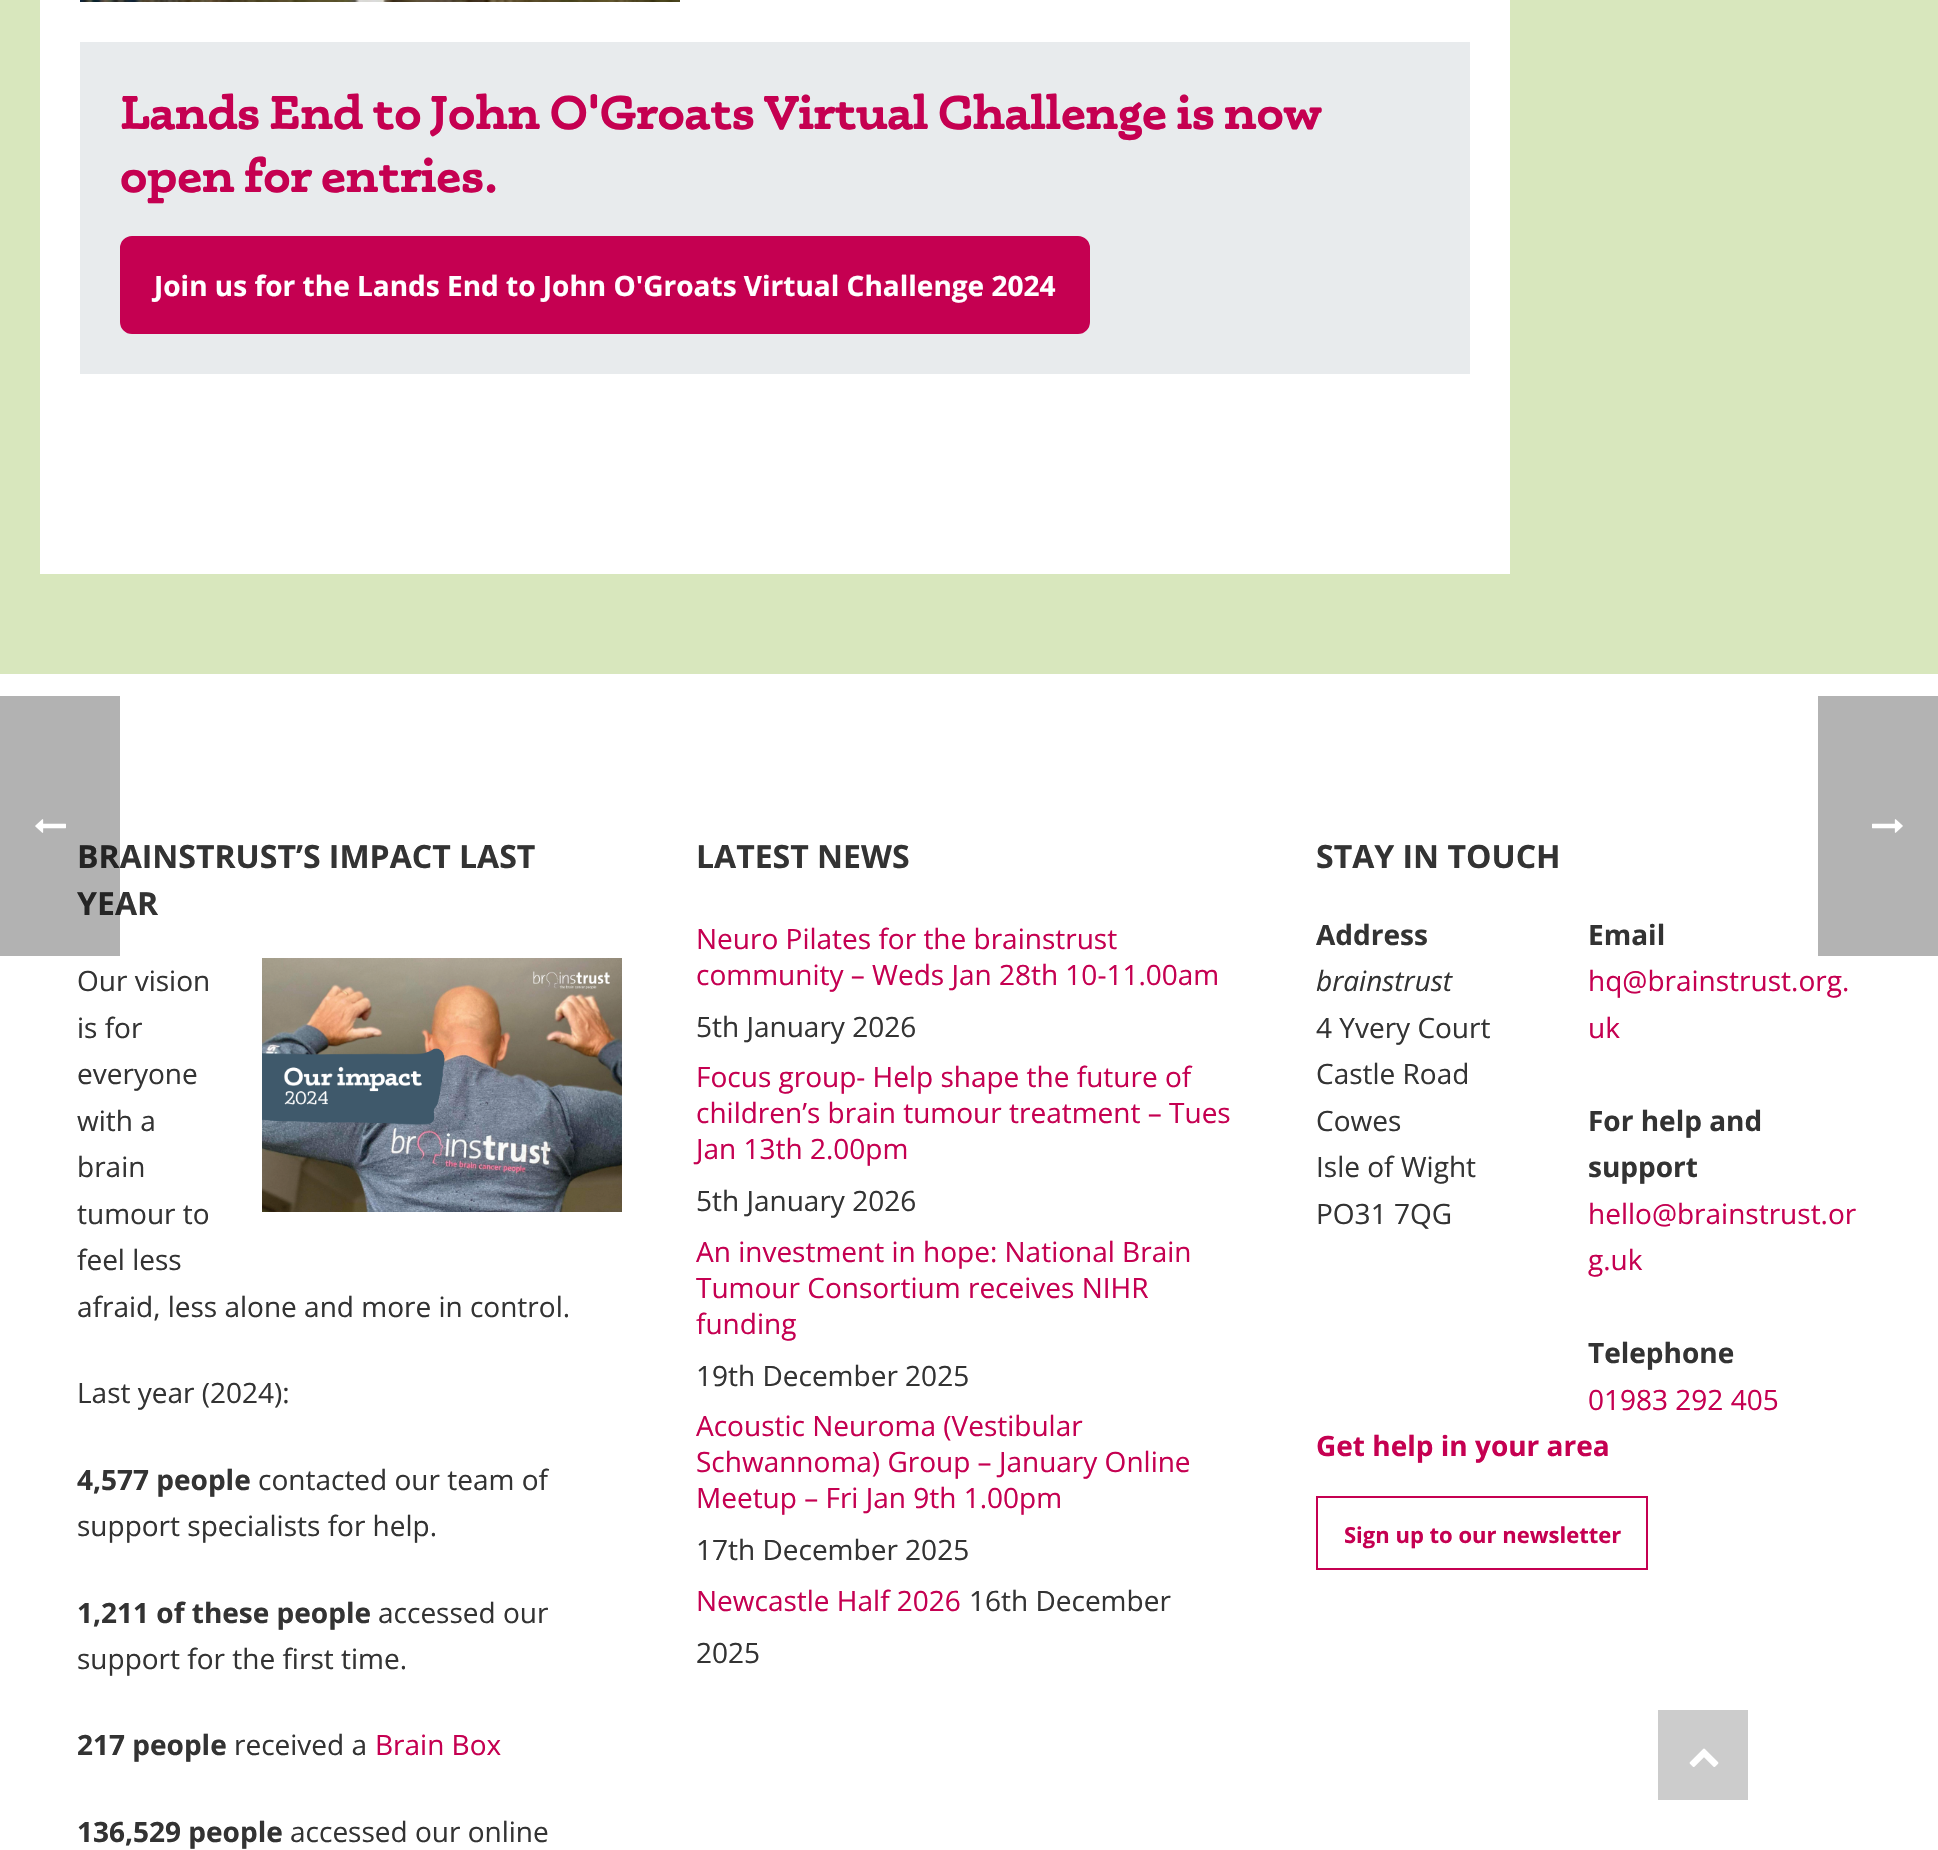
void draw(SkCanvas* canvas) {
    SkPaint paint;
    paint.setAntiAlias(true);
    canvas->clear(0xFFFFFFFF);
    SkFont font1(fontMgr->matchFamilyStyle("Open Sans", SkFontStyle::Bold()), 32);
    font1.setSubpixel(true);
    paint.setColor(0xFF333333);
    canvas->drawString("BRAINSTRUST’S IMPACT LAST", 77, 868, font1, paint);
    canvas->drawString("YEAR", 77, 915, font1, paint);
    paint.setColor(0x4D000000);
    canvas->drawRect(SkRect::MakeXYWH(0, 696, 120, 260), paint);
    canvas->drawImageRect(SkImages::DeferredFromEncodedData(SkData::MakeFromFileName("img1.png")), SkRect::MakeXYWH(35, 819, 31, 14), SkSamplingOptions());
    paint.setColor(0xFFD8E7BD);
    canvas->drawRect(SkRect::MakeXYWH(0, 0, 1938, 674), paint);
    paint.setColor(0xFFFFFFFF);
    canvas->drawRect(SkRect::MakeXYWH(40, 0, 1470, 574), paint);
    canvas->drawImageRect(SkImages::DeferredFromEncodedData(SkData::MakeFromFileName("img2.png")), SkRect::MakeXYWH(80, 0, 600, 2), SkSamplingOptions());
    paint.setColor(0xFFE8EBED);
    canvas->drawRect(SkRect::MakeXYWH(80, 42, 1390, 332), paint);
    SkFont font2(fontMgr->matchFamilyStyle("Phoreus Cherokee", SkFontStyle::Bold()), 48);
    font2.setSubpixel(true);
    paint.setColor(0xFFC50051);
    canvas->drawString("Lands End to John O'Groats Virtual Challenge is now", 120, 129, font2, paint);
    canvas->drawString("open for entries.", 120, 192, font2, paint);
    canvas->drawRoundRect(SkRect::MakeXYWH(121, 237, 968, 96), 11, 11, paint);
    paint.setStyle(SkPaint::kStroke_Style);
    paint.setStrokeWidth(2);
    canvas->drawRoundRect(SkRect::MakeXYWH(121, 237, 968, 96), 11, 11, paint);
    SkFont font3(fontMgr->matchFamilyStyle("Open Sans", SkFontStyle::Bold()), 28);
    font3.setSubpixel(true);
    paint.setStyle(SkPaint::kFill_Style);
    paint.setColor(0xFFFFFFFF);
    canvas->drawString("Join us for the Lands End to John O'Groats Virtual Challenge 2024", 154, 296, font3, paint);
    SkFont font4(fontMgr->matchFamilyStyle("Open Sans", SkFontStyle::Normal()), 28);
    font4.setSubpixel(true);
    paint.setColor(0xFF333333);
    canvas->drawString("Our vision", 77, 991, font4, paint);
    canvas->drawImageRect(SkImages::DeferredFromEncodedData(SkData::MakeFromFileName("img3.png")), SkRect::MakeXYWH(262, 958, 360, 254), SkSamplingOptions());
    canvas->drawString("is for", 77, 1038, font4, paint);
    canvas->drawString("everyone", 77, 1084, font4, paint);
    canvas->drawString("with a", 77, 1131, font4, paint);
    canvas->drawString("brain", 77, 1177, font4, paint);
    canvas->drawString("tumour to", 77, 1224, font4, paint);
    canvas->drawString("feel less", 77, 1270, font4, paint);
    canvas->drawString("afraid, less alone and more in control.", 77, 1317, font4, paint);
    canvas->drawString("Last year (2024):", 77, 1403, font4, paint);
    canvas->drawString("4,577 people", 77, 1490, font3, paint);
    canvas->drawString("contacted our team of", 258, 1490, font4, paint);
    canvas->drawString("support specialists for help.", 77, 1536, font4, paint);
    canvas->drawString("1,211 of these people", 77, 1623, font3, paint);
    canvas->drawString("accessed our", 378, 1623, font4, paint);
    canvas->drawString("support for the first time.", 77, 1669, font4, paint);
    canvas->drawString("217 people", 77, 1755, font3, paint);
    canvas->drawString("received a", 234, 1755, font4, paint);
    paint.setColor(0xFFC50051);
    canvas->drawString("Brain Box", 375, 1755, font4, paint);
    paint.setColor(0xFF333333);
    canvas->drawString("136,529 people", 77, 1842, font3, paint);
    canvas->drawString("accessed our online", 290, 1842, font4, paint);
    canvas->drawString("LATEST NEWS", 696, 868, font1, paint);
    paint.setColor(0xFFC50051);
    canvas->drawString("Neuro Pilates for the brainstrust", 696, 949, font4, paint);
    canvas->drawString("community – Weds Jan 28th 10-11.00am", 696, 985, font4, paint);
    paint.setColor(0xFF333333);
    canvas->drawString("5th January 2026", 696, 1037, font4, paint);
    paint.setColor(0xFFC50051);
    canvas->drawString("Focus group- Help shape the future of", 696, 1087, font4, paint);
    canvas->drawString("children’s brain tumour treatment – Tues", 696, 1123, font4, paint);
    canvas->drawString("Jan 13th 2.00pm", 696, 1159, font4, paint);
    paint.setColor(0xFF333333);
    canvas->drawString("5th January 2026", 696, 1211, font4, paint);
    paint.setColor(0xFFC50051);
    canvas->drawString("An investment in hope: National Brain", 696, 1262, font4, paint);
    canvas->drawString("Tumour Consortium receives NIHR", 696, 1298, font4, paint);
    canvas->drawString("funding", 696, 1334, font4, paint);
    paint.setColor(0xFF333333);
    canvas->drawString("19th December 2025", 696, 1386, font4, paint);
    paint.setColor(0xFFC50051);
    canvas->drawString("Acoustic Neuroma (Vestibular", 696, 1436, font4, paint);
    canvas->drawString("Schwannoma) Group – January Online", 696, 1472, font4, paint);
    canvas->drawString("Meetup – Fri Jan 9th 1.00pm", 696, 1508, font4, paint);
    paint.setColor(0xFF333333);
    canvas->drawString("17th December 2025", 696, 1560, font4, paint);
    paint.setColor(0xFFC50051);
    canvas->drawString("Newcastle Half 2026", 696, 1611, font4, paint);
    paint.setColor(0xFF333333);
    canvas->drawString("16th December", 969, 1611, font4, paint);
    canvas->drawString("2025", 696, 1663, font4, paint);
    canvas->drawString("STAY IN TOUCH", 1316, 868, font1, paint);
    canvas->drawString("Address", 1316, 945, font3, paint);
    SkFont font5(fontMgr->matchFamilyStyle("Open Sans", SkFontStyle::Italic()), 28);
    font5.setSubpixel(true);
    canvas->drawString("brainstrust", 1316, 991, font5, paint);
    canvas->drawString("4 Yvery Court", 1316, 1038, font4, paint);
    canvas->drawString("Castle Road", 1316, 1084, font4, paint);
    canvas->drawString("Cowes", 1316, 1131, font4, paint);
    canvas->drawString("Isle of Wight", 1316, 1177, font4, paint);
    canvas->drawString("PO31 7QG", 1316, 1224, font4, paint);
    canvas->drawString("Email", 1588, 945, font3, paint);
    paint.setColor(0xFFC50051);
    canvas->drawString("hq@brainstrust.org.", 1588, 991, font4, paint);
    canvas->drawString("uk", 1588, 1038, font4, paint);
    paint.setColor(0xFF333333);
    canvas->drawString("For help and", 1588, 1131, font3, paint);
    canvas->drawString("support", 1588, 1177, font3, paint);
    paint.setColor(0xFFC50051);
    canvas->drawString("hello@brainstrust.or", 1588, 1224, font4, paint);
    canvas->drawString("g.uk", 1588, 1270, font4, paint);
    paint.setColor(0xFF333333);
    canvas->drawString("Telephone", 1588, 1363, font3, paint);
    paint.setColor(0xFFC50051);
    canvas->drawString("01983 292 405", 1588, 1410, font4, paint);
    canvas->drawString("Get help in your area", 1316, 1456, font3, paint);
    paint.setStyle(SkPaint::kStroke_Style);
    canvas->drawRect(SkRect::MakeXYWH(1317, 1497, 330, 72), paint);
    SkFont font6(fontMgr->matchFamilyStyle("Open Sans", SkFontStyle::Bold()), 22);
    font6.setSubpixel(true);
    paint.setStyle(SkPaint::kFill_Style);
    canvas->drawString("Sign up to our newsletter", 1344, 1543, font6, paint);
    paint.setColor(0xFFB3B3B3);
    canvas->drawRect(SkRect::MakeXYWH(1818, 696, 120, 260), paint);
    canvas->drawImageRect(SkImages::DeferredFromEncodedData(SkData::MakeFromFileName("img4.png")), SkRect::MakeXYWH(1872, 819, 31, 14), SkSamplingOptions());
    paint.setColor(0xFFCCCCCC);
    canvas->drawRect(SkRect::MakeXYWH(1658, 1710, 90, 90), paint);
    canvas->drawImageRect(SkImages::DeferredFromEncodedData(SkData::MakeFromFileName("img5.png")), SkRect::MakeXYWH(1689, 1748, 30, 19), SkSamplingOptions());
}
